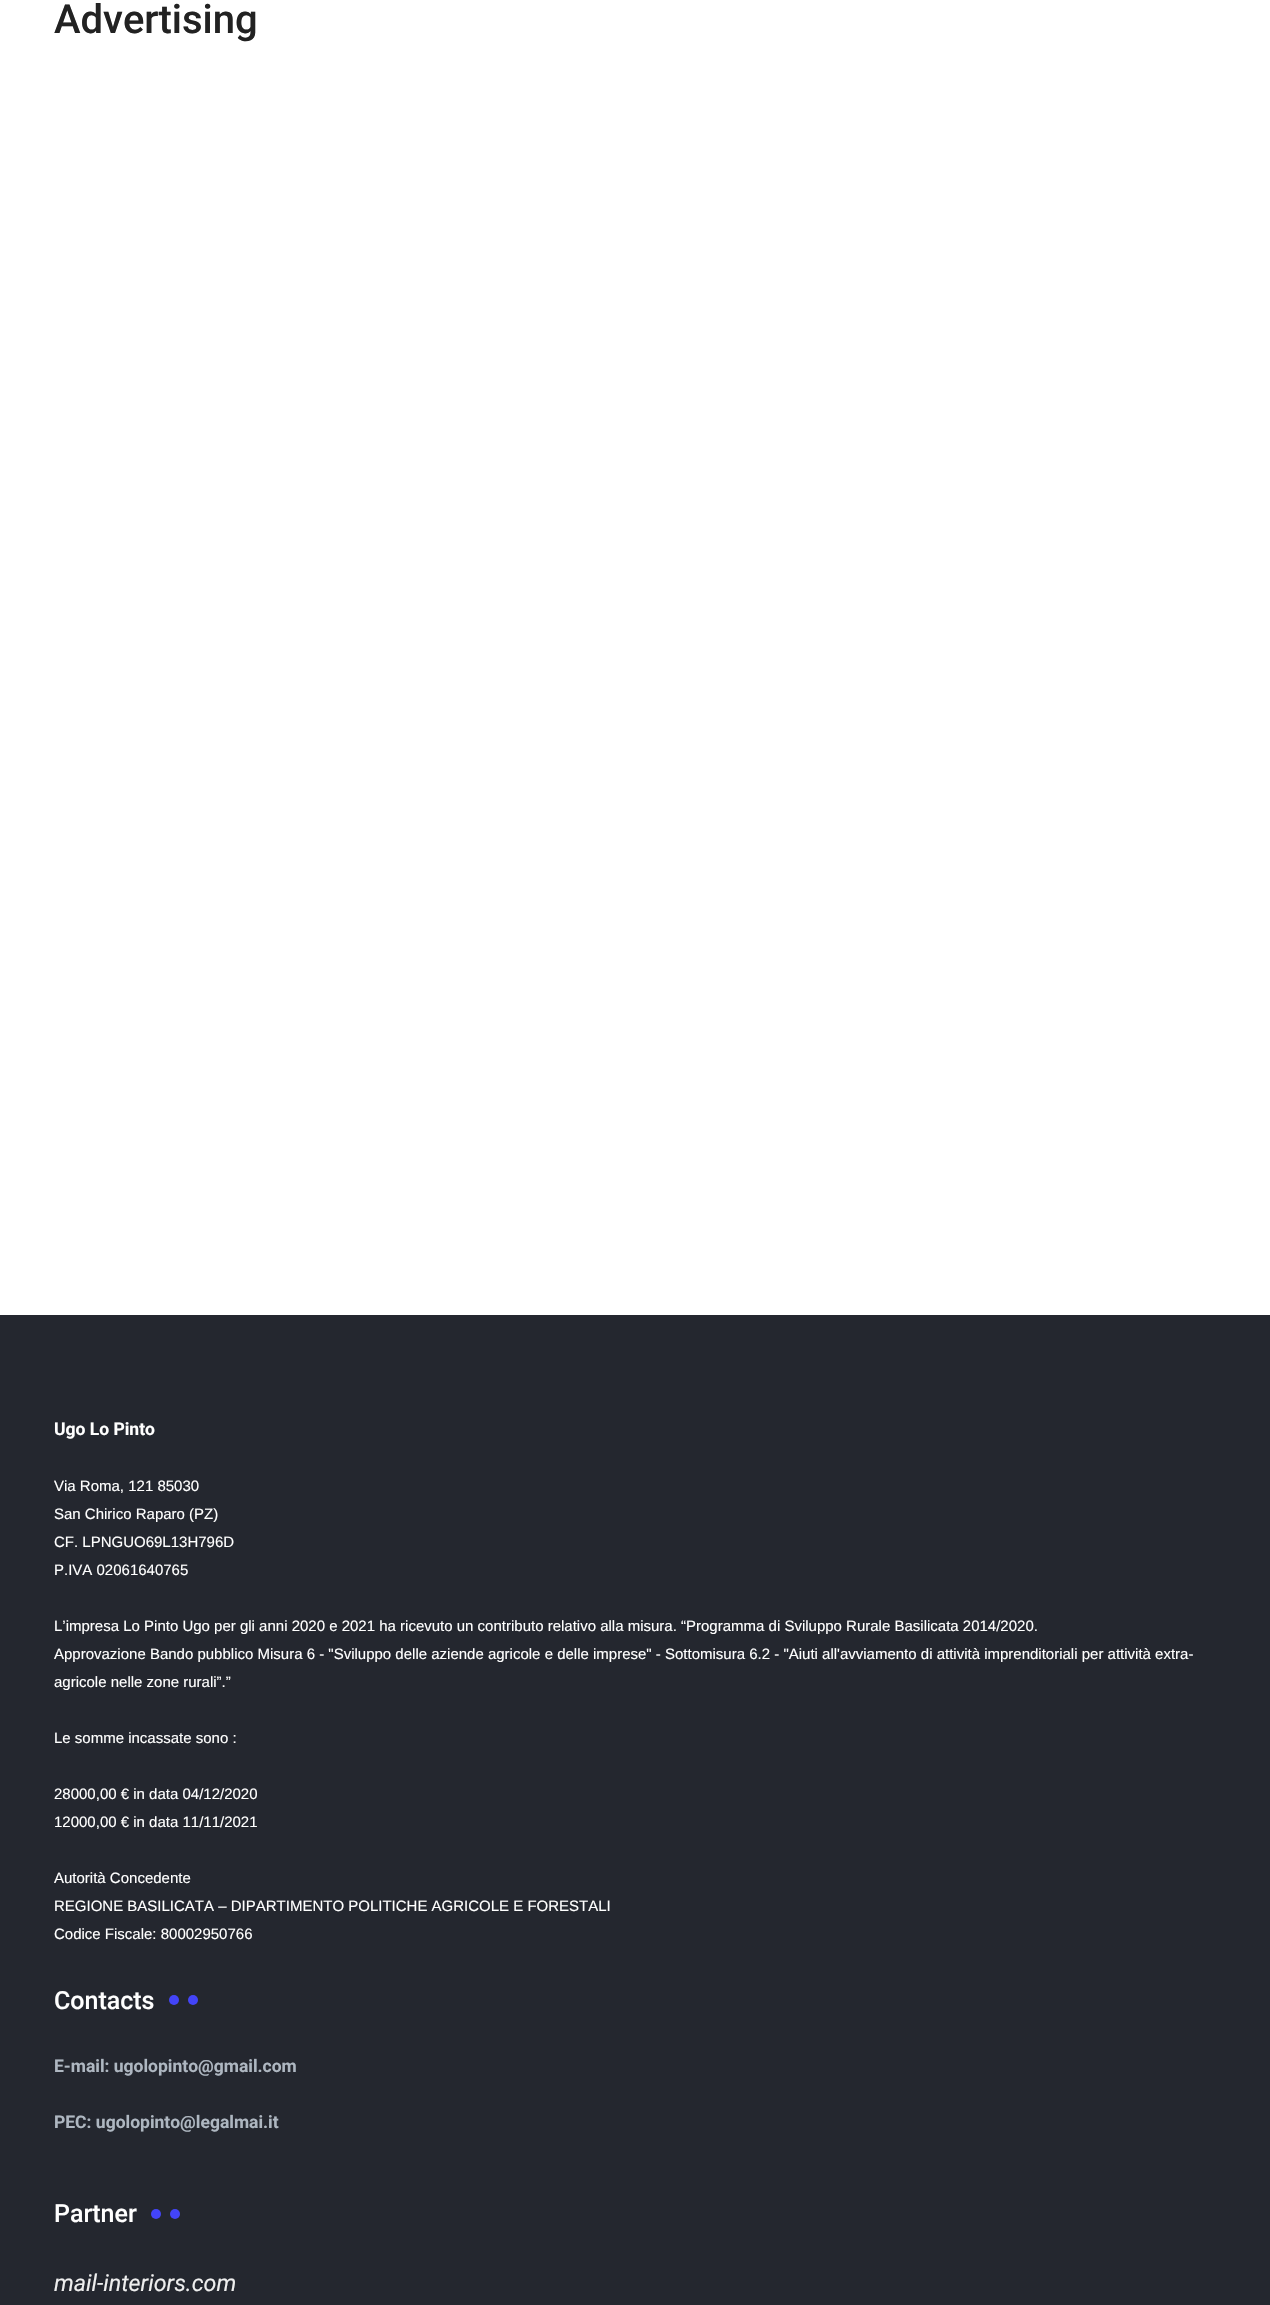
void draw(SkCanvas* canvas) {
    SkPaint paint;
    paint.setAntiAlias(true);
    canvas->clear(0xFFFFFFFF);
    SkFont font1(fontMgr->matchFamilyStyle("Roboto", SkFontStyle(500, SkFontStyle::kNormal_Width, SkFontStyle::kUpright_Slant)), 40);
    font1.setSubpixel(true);
    paint.setColor(0xFF222222);
    canvas->drawString("Advertising", 54, 33, font1, paint);
    paint.setColor(0xFF24272F);
    canvas->drawRect(SkRect::MakeXYWH(0, 1315, 1270, 990), paint);
    SkFont font2(fontMgr->matchFamilyStyle("Roboto", SkFontStyle::Bold()), 17.5f);
    font2.setSubpixel(true);
    paint.setColor(0xFFFFFFFF);
    canvas->drawString("Ugo Lo Pinto", 54, 1435, font2, paint);
    SkFont font3(fontMgr->matchFamilyStyle("Liberation Sans", SkFontStyle::Normal()), 15);
    font3.setSubpixel(true);
    canvas->drawString("Via Roma, 121 85030", 54, 1491, font3, paint);
    canvas->drawString("San Chirico Raparo (PZ)", 54, 1519, font3, paint);
    canvas->drawString("CF. LPNGUO69L13H796D", 54, 1547, font3, paint);
    canvas->drawString("P.IVA 02061640765", 54, 1575, font3, paint);
    canvas->drawString("L’impresa Lo Pinto Ugo per gli anni 2020 e 2021 ha ricevuto un contributo relativo alla misura. “Programma di Sviluppo Rurale Basilicata 2014/2020.", 54, 1631, font3, paint);
    canvas->drawString("Approvazione Bando pubblico Misura 6 - \"Sviluppo delle aziende agricole e delle imprese\" - Sottomisura 6.2 - \"Aiuti all'avviamento di attività imprenditoriali per attività extra-", 54, 1659, font3, paint);
    canvas->drawString("agricole nelle zone rurali”.”", 54, 1687, font3, paint);
    canvas->drawString("Le somme incassate sono :", 54, 1743, font3, paint);
    canvas->drawString("28000,00 € in data 04/12/2020", 54, 1799, font3, paint);
    canvas->drawString("12000,00 € in data 11/11/2021", 54, 1827, font3, paint);
    canvas->drawString("Autorità Concedente", 54, 1883, font3, paint);
    canvas->drawString("REGIONE BASILICATA – DIPARTIMENTO POLITICHE AGRICOLE E FORESTALI", 54, 1911, font3, paint);
    canvas->drawString("Codice Fiscale: 80002950766", 54, 1939, font3, paint);
    SkFont font4(fontMgr->matchFamilyStyle("Roboto", SkFontStyle(500, SkFontStyle::kNormal_Width, SkFontStyle::kUpright_Slant)), 25);
    font4.setSubpixel(true);
    canvas->drawString("Contacts", 54, 2009, font4, paint);
    paint.setColor(0xFF4344F8);
    canvas->drawCircle(193, 2000, 5, paint);
    canvas->drawCircle(174, 2000, 5, paint);
    paint.setColor(0xFFAEB7C1);
    canvas->drawString("E-mail: ugolopinto@gmail.com", 54, 2072, font2, paint);
    canvas->drawString("PEC: ugolopinto@legalmai.it", 54, 2128, font2, paint);
    paint.setColor(0xFFFFFFFF);
    canvas->drawString("Partner", 54, 2222, font4, paint);
    paint.setColor(0xFF4344F8);
    canvas->drawCircle(175, 2214, 5, paint);
    canvas->drawCircle(156, 2214, 5, paint);
    SkFont font5(fontMgr->matchFamilyStyle("Roboto", SkFontStyle::Italic()), 23.25f);
    font5.setSubpixel(true);
    paint.setColor(0xFFEEEEEE);
    canvas->drawString("mail-interiors.com", 54, 2291, font5, paint);
}
